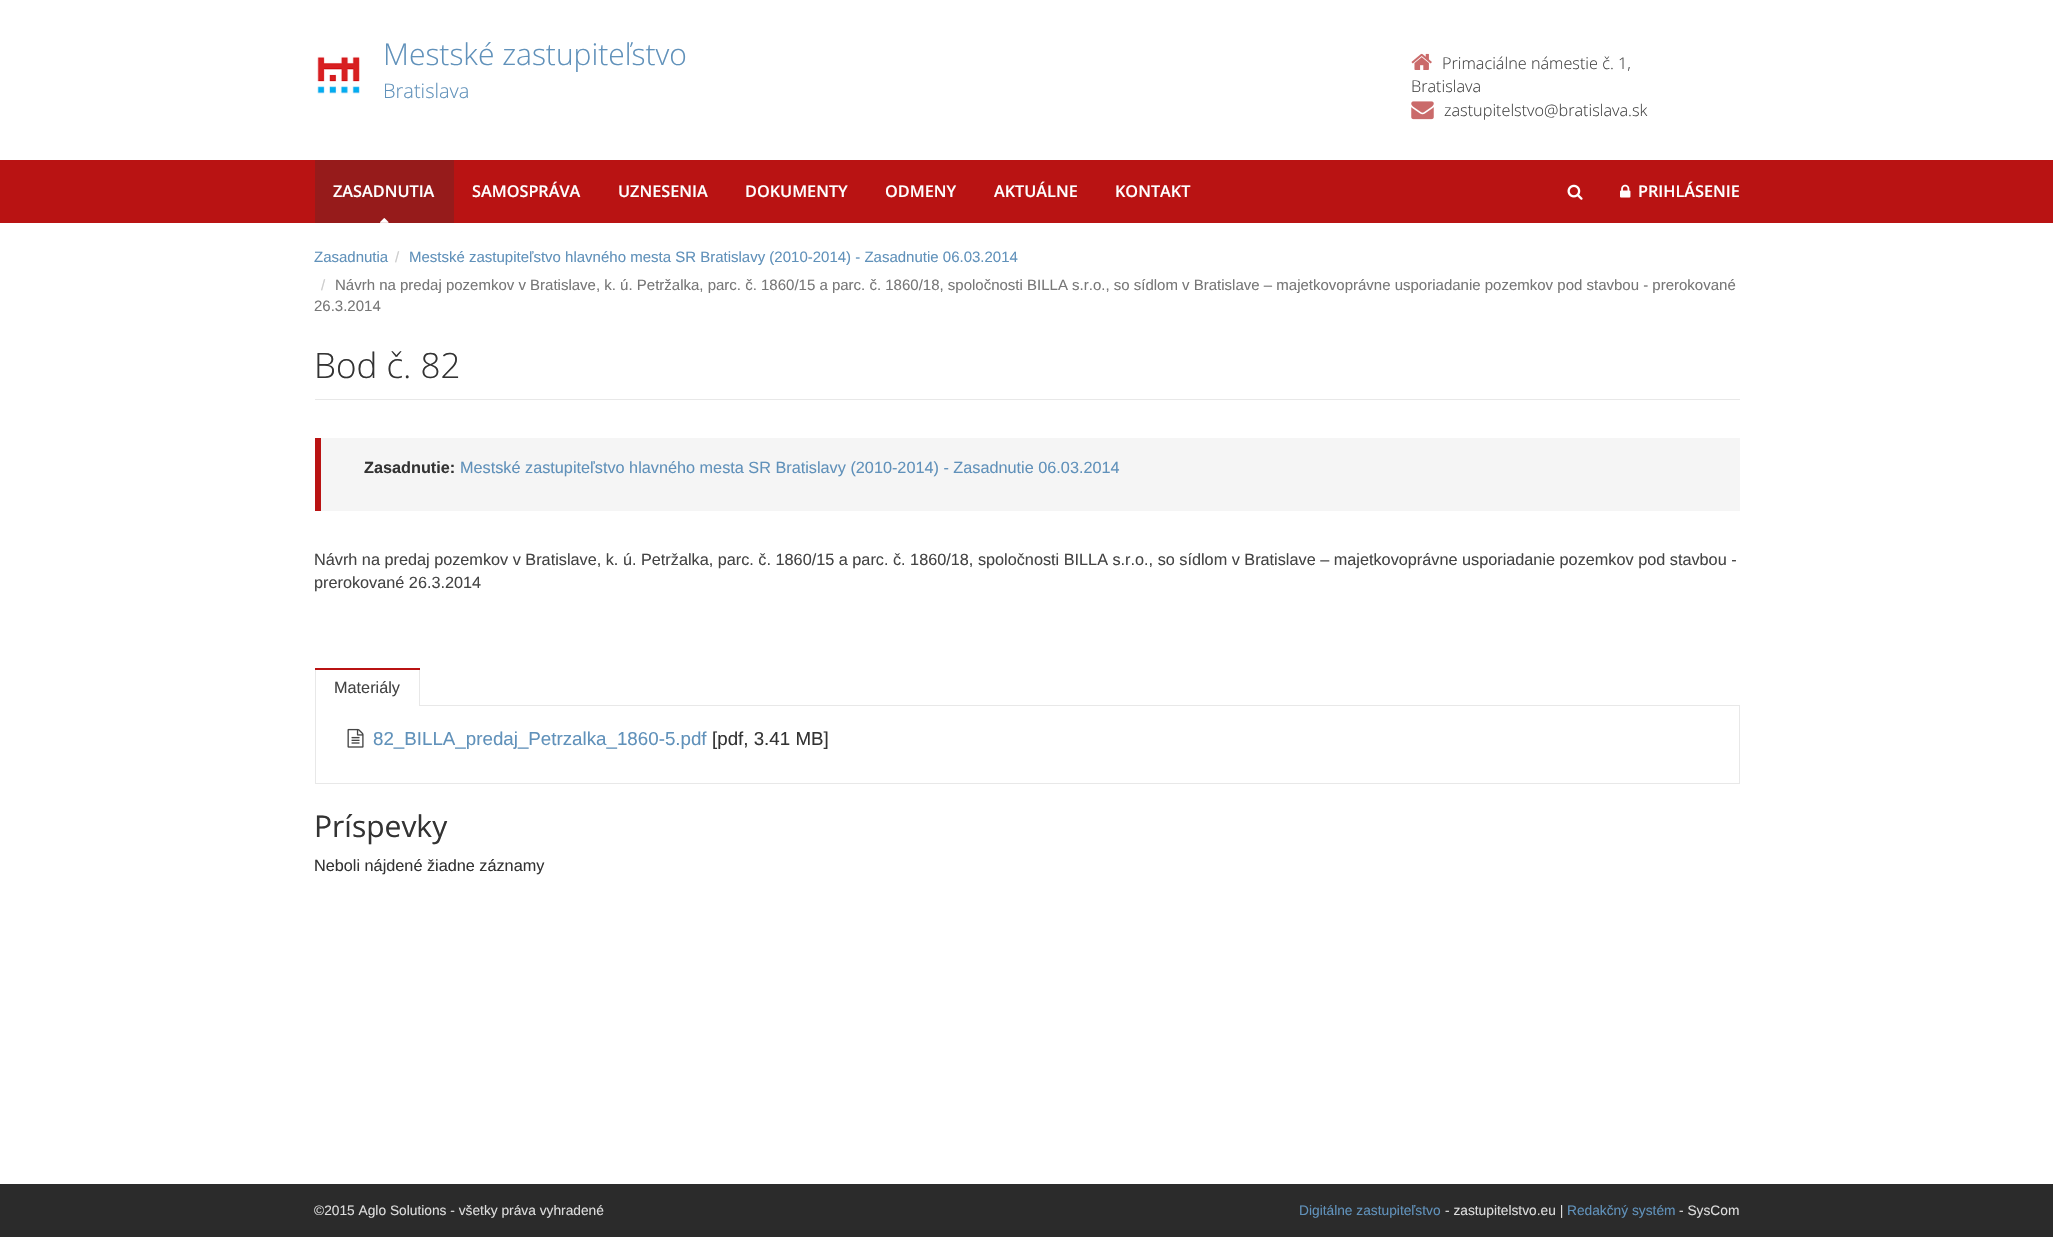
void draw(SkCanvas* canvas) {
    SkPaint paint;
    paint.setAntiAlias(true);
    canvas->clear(0xFFFFFFFF);
    canvas->drawImageRect(SkImages::DeferredFromEncodedData(SkData::MakeFromFileName("img1.png")), SkRect::MakeXYWH(317, 56, 43, 38), SkSamplingOptions());
    SkFont font1(fontMgr->matchFamilyStyle("Open Sans", SkFontStyle(300, SkFontStyle::kNormal_Width, SkFontStyle::kUpright_Slant)), 30);
    font1.setSubpixel(true);
    paint.setColor(0xFF6091BA);
    canvas->drawString("Mestské zastupiteľstvo", 383, 65, font1, paint);
    SkFont font2(fontMgr->matchFamilyStyle("Open Sans", SkFontStyle(300, SkFontStyle::kNormal_Width, SkFontStyle::kUpright_Slant)), 20);
    font2.setSubpixel(true);
    canvas->drawString("Bratislava", 383, 98, font2, paint);
    canvas->drawImageRect(SkImages::DeferredFromEncodedData(SkData::MakeFromFileName("img2.png")), SkRect::MakeXYWH(1411, 53, 21, 17), SkSamplingOptions());
    SkFont font3(fontMgr->matchFamilyStyle("Open Sans", SkFontStyle(300, SkFontStyle::kNormal_Width, SkFontStyle::kUpright_Slant)), 16.25f);
    font3.setSubpixel(true);
    paint.setColor(0xFF444444);
    canvas->drawString("Primaciálne námestie č. 1,", 1442, 69, font3, paint);
    canvas->drawString("Bratislava", 1411, 92, font3, paint);
    canvas->drawImageRect(SkImages::DeferredFromEncodedData(SkData::MakeFromFileName("img3.png")), SkRect::MakeXYWH(1411, 101, 23, 19), SkSamplingOptions());
    canvas->drawString("zastupitelstvo@bratislava.sk", 1444, 116, font3, paint);
    paint.setColor(0xFFB91313);
    canvas->drawRect(SkRect::MakeXYWH(0, 160, 2053, 63), paint);
    paint.setColor(0xFF961B1B);
    canvas->drawRect(SkRect::MakeXYWH(315, 160, 139, 63), paint);
    SkFont font4(fontMgr->matchFamilyStyle("Open Sans", SkFontStyle(600, SkFontStyle::kNormal_Width, SkFontStyle::kUpright_Slant)), 16.25f);
    font4.setSubpixel(true);
    paint.setColor(0xFFFFFFFF);
    canvas->drawString("ZASADNUTIA", 333, 197, font4, paint);
    canvas->drawImageRect(SkImages::DeferredFromEncodedData(SkData::MakeFromFileName("img4.png")), SkRect::MakeXYWH(380, 218, 9, 5), SkSamplingOptions());
    canvas->drawString("SAMOSPRÁVA", 472, 197, font4, paint);
    canvas->drawString("UZNESENIA", 618, 197, font4, paint);
    canvas->drawString("DOKUMENTY", 745, 197, font4, paint);
    canvas->drawString("ODMENY", 885, 197, font4, paint);
    canvas->drawString("AKTUÁLNE", 994, 197, font4, paint);
    canvas->drawString("KONTAKT", 1115, 197, font4, paint);
    canvas->drawImageRect(SkImages::DeferredFromEncodedData(SkData::MakeFromFileName("img5.png")), SkRect::MakeXYWH(1567, 184, 16, 16), SkSamplingOptions());
    canvas->drawImageRect(SkImages::DeferredFromEncodedData(SkData::MakeFromFileName("img6.png")), SkRect::MakeXYWH(1620, 184, 11, 14), SkSamplingOptions());
    canvas->drawString("PRIHLÁSENIE", 1638, 197, font4, paint);
    SkFont font5(fontMgr->matchFamilyStyle("Liberation Sans", SkFontStyle::Normal()), 15);
    font5.setSubpixel(true);
    paint.setColor(0xFF6091BA);
    canvas->drawString("Zasadnutia", 314, 262, font5, paint);
    paint.setColor(0xFFCCCCCC);
    canvas->drawString("/", 395, 262, font5, paint);
    paint.setColor(0xFF6091BA);
    canvas->drawString("Mestské zastupiteľstvo hlavného mesta SR Bratislavy (2010-2014) - Zasadnutie 06.03.2014", 409, 262, font5, paint);
    paint.setColor(0xFFCCCCCC);
    canvas->drawString("/", 321, 290, font5, paint);
    paint.setColor(0xFF777777);
    canvas->drawString("Návrh na predaj pozemkov v Bratislave, k. ú. Petržalka, parc. č. 1860/15 a parc. č. 1860/18, spoločnosti BILLA s.r.o., so sídlom v Bratislave – majetkovoprávne usporiadanie pozemkov pod stavbou - prerokované", 335, 290, font5, paint);
    canvas->drawString("26.3.2014", 314, 311, font5, paint);
    paint.setColor(0xFFE8E8E8);
    canvas->drawRect(SkRect::MakeXYWH(315, 399, 1425, 1), paint);
    SkFont font6(fontMgr->matchFamilyStyle("Open Sans", SkFontStyle(300, SkFontStyle::kNormal_Width, SkFontStyle::kUpright_Slant)), 35);
    font6.setSubpixel(true);
    paint.setColor(0xFF333333);
    canvas->drawString("Bod č. 82", 314, 378, font6, paint);
    paint.setColor(0xFFF5F5F5);
    canvas->drawRect(SkRect::MakeXYWH(321, 438, 1419, 73), paint);
    paint.setColor(0xFFB91313);
    canvas->drawRect(SkRect::MakeXYWH(315, 438, 6, 73), paint);
    SkFont font7(fontMgr->matchFamilyStyle("Liberation Sans", SkFontStyle::Bold()), 16.25f);
    font7.setSubpixel(true);
    paint.setColor(0xFF333333);
    canvas->drawString("Zasadnutie:", 364, 473, font7, paint);
    SkFont font8(fontMgr->matchFamilyStyle("Liberation Sans", SkFontStyle::Normal()), 16.25f);
    font8.setSubpixel(true);
    paint.setColor(0xFF6091BA);
    canvas->drawString("Mestské zastupiteľstvo hlavného mesta SR Bratislavy (2010-2014) - Zasadnutie 06.03.2014", 460, 473, font8, paint);
    paint.setColor(0xFF444444);
    canvas->drawString("Návrh na predaj pozemkov v Bratislave, k. ú. Petržalka, parc. č. 1860/15 a parc. č. 1860/18, spoločnosti BILLA s.r.o., so sídlom v Bratislave – majetkovoprávne usporiadanie pozemkov pod stavbou -", 314, 565, font8, paint);
    canvas->drawString("prerokované 26.3.2014", 314, 588, font8, paint);
    paint.setColor(0xFFB91313);
    canvas->drawRect(SkRect::MakeXYWH(315, 668, 105, 2), paint);
    paint.setStyle(SkPaint::kStroke_Style);
    paint.setStrokeWidth(1);
    paint.setColor(0xFFE8E8E8);
    canvas->drawRect(SkRect::MakeXYWH(315.5f, 705.5f, 1424, 78), paint);
    paint.setStyle(SkPaint::kFill_Style);
    paint.setColor(0xFFFFFFFF);
    canvas->drawRect(SkRect::MakeXYWH(316, 705, 103, 1), paint);
    paint.setColor(0xFFE8E8E8);
    canvas->drawRect(SkRect::MakeXYWH(419, 670, 1, 36), paint);
    canvas->drawRect(SkRect::MakeXYWH(315, 670, 1, 36), paint);
    paint.setColor(0xFF444444);
    canvas->drawString("Materiály", 334, 693, font8, paint);
    canvas->drawImageRect(SkImages::DeferredFromEncodedData(SkData::MakeFromFileName("img7.png")), SkRect::MakeXYWH(347, 728, 17, 20), SkSamplingOptions());
    SkFont font9(fontMgr->matchFamilyStyle("Liberation Sans", SkFontStyle::Normal()), 18.75f);
    font9.setSubpixel(true);
    paint.setColor(0xFF6091BA);
    canvas->drawString("82_BILLA_predaj_Petrzalka_1860-5.pdf", 373, 745, font9, paint);
    paint.setColor(0xFF333333);
    canvas->drawString("[pdf, 3.41 MB]", 712, 745, font9, paint);
    SkFont font10(fontMgr->matchFamilyStyle("Open Sans", SkFontStyle::Normal()), 30);
    font10.setSubpixel(true);
    canvas->drawString("Príspevky", 314, 837, font10, paint);
    canvas->drawString("Neboli nájdené žiadne záznamy", 314, 871, font8, paint);
    paint.setColor(0xFF2B2B2B);
    canvas->drawRect(SkRect::MakeXYWH(0, 1184, 2053, 53), paint);
    SkFont font11(fontMgr->matchFamilyStyle("Liberation Sans", SkFontStyle::Normal()), 13.75f);
    font11.setSubpixel(true);
    paint.setColor(0xFFDCDCDC);
    canvas->drawString("©2015 Aglo Solutions - všetky práva vyhradené", 314, 1215, font11, paint);
    paint.setColor(0xFF6091BA);
    canvas->drawString("Digitálne zastupiteľstvo", 1299, 1215, font11, paint);
    paint.setColor(0xFFDCDCDC);
    canvas->drawString("- zastupitelstvo.eu |", 1445, 1215, font11, paint);
    paint.setColor(0xFF6091BA);
    canvas->drawString("Redakčný systém", 1567, 1215, font11, paint);
    paint.setColor(0xFFDCDCDC);
    canvas->drawString("- SysCom", 1679, 1215, font11, paint);
}
